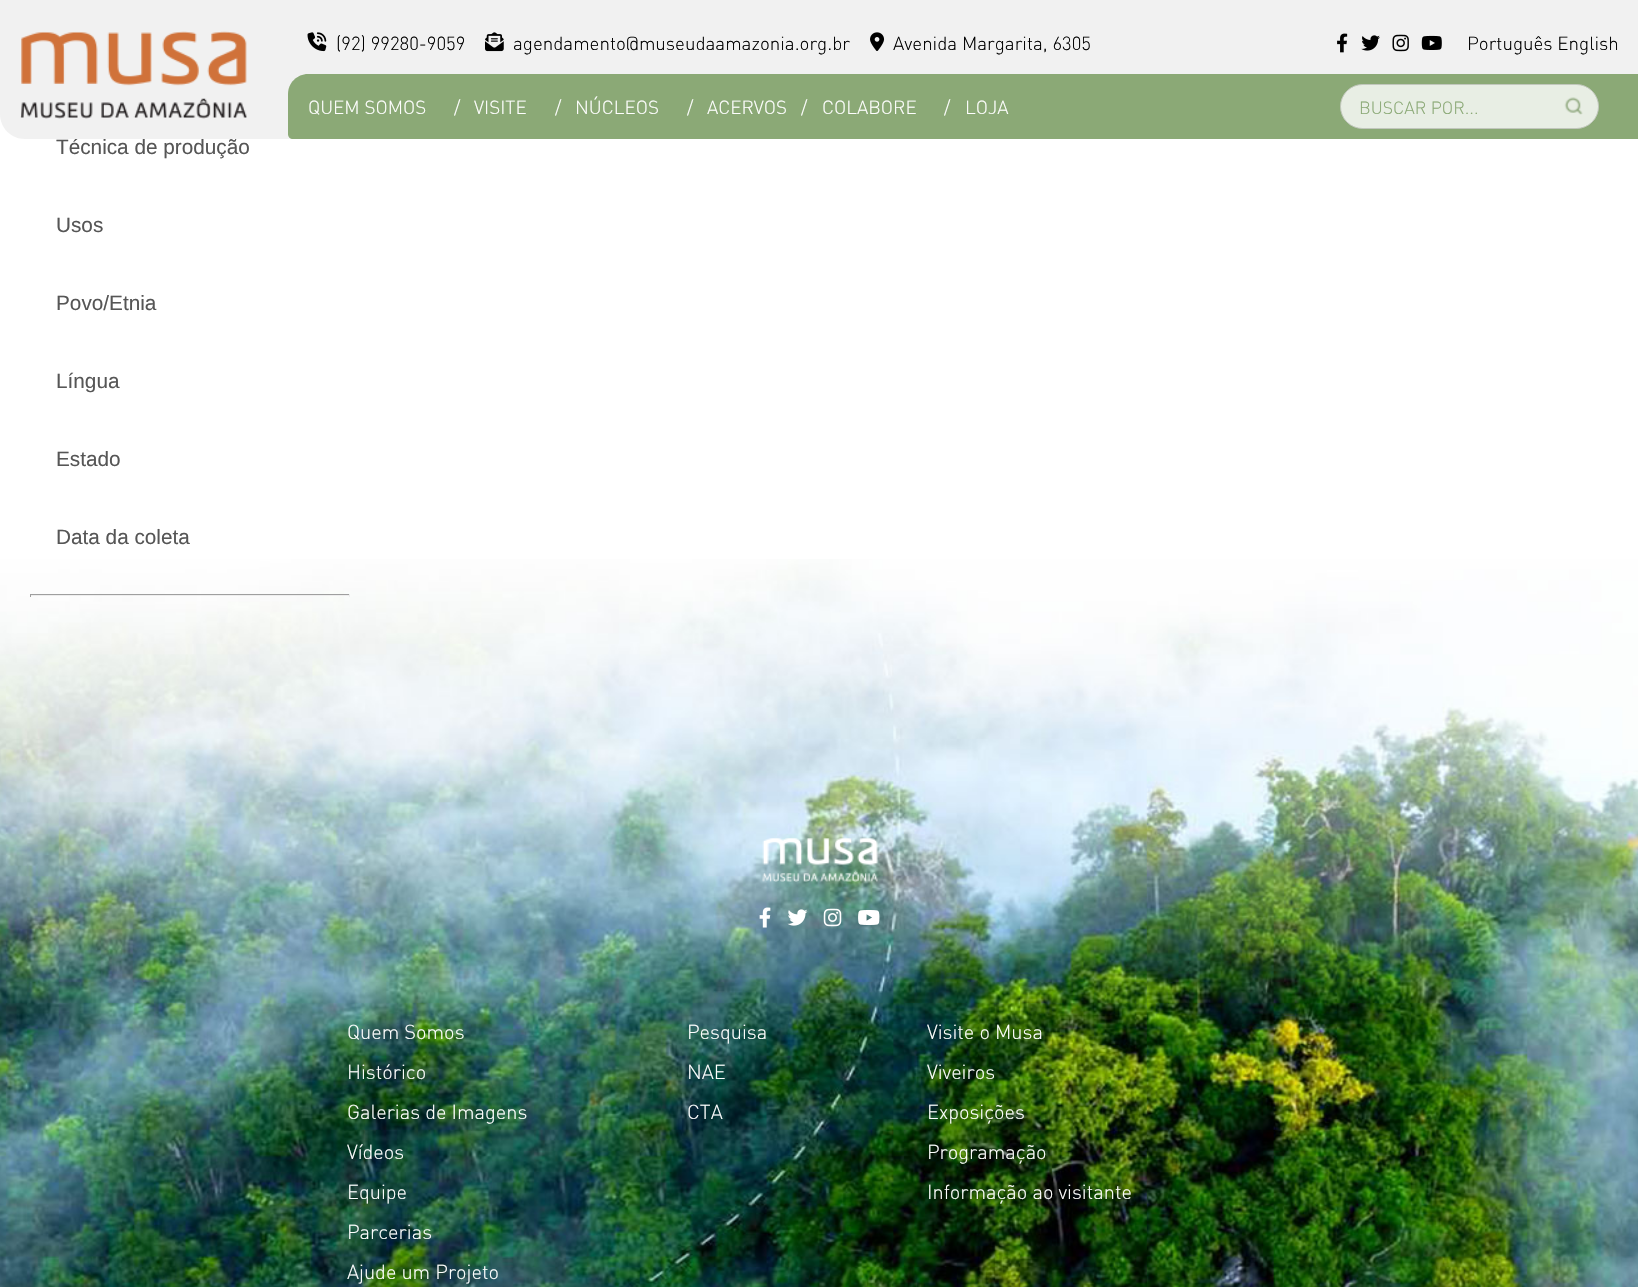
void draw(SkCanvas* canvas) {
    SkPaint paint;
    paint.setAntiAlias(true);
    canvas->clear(0xFFFFFFFF);
    SkFont font1(fontMgr->matchFamilyStyle("Liberation Sans", SkFontStyle::Normal()), 20.75f);
    font1.setSubpixel(true);
    paint.setColor(0xFF565656);
    canvas->drawString("Técnica de produção", 56, 154, font1, paint);
    paint.setColor(0xFFF1F1F1);
    canvas->drawPath(SkPathBuilder().moveTo(0, 0).lineTo(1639, 0).lineTo(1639, 139).lineTo(25, 139).cubicTo(11, 139, 0, 128, 0, 114).close().detach(), paint);
    canvas->drawImageRect(SkImages::DeferredFromEncodedData(SkData::MakeFromFileName("img1.png")), SkRect::MakeXYWH(20, 31, 227, 88), SkSamplingOptions());
    canvas->drawImageRect(SkImages::DeferredFromEncodedData(SkData::MakeFromFileName("img2.png")), SkRect::MakeXYWH(307, 32, 20, 20), SkSamplingOptions());
    SkFont font2(fontMgr->matchFamilyStyle("DIN", SkFontStyle(300, SkFontStyle::kNormal_Width, SkFontStyle::kUpright_Slant)), 18.75f);
    font2.setSubpixel(true);
    paint.setColor(0xFF000000);
    canvas->drawString("(92) 99280-9059", 336, 50, font2, paint);
    canvas->drawImageRect(SkImages::DeferredFromEncodedData(SkData::MakeFromFileName("img3.png")), SkRect::MakeXYWH(485, 32, 19, 20), SkSamplingOptions());
    canvas->drawString("agendamento@museudaamazonia.org.br", 513, 50, font2, paint);
    canvas->drawImageRect(SkImages::DeferredFromEncodedData(SkData::MakeFromFileName("img4.png")), SkRect::MakeXYWH(870, 32, 15, 19), SkSamplingOptions());
    canvas->drawString("Avenida Margarita, 6305", 893, 50, font2, paint);
    canvas->drawImageRect(SkImages::DeferredFromEncodedData(SkData::MakeFromFileName("img5.png")), SkRect::MakeXYWH(1337, 33, 11, 20), SkSamplingOptions());
    canvas->drawImageRect(SkImages::DeferredFromEncodedData(SkData::MakeFromFileName("img6.png")), SkRect::MakeXYWH(1361, 35, 19, 16), SkSamplingOptions());
    canvas->drawImageRect(SkImages::DeferredFromEncodedData(SkData::MakeFromFileName("img7.png")), SkRect::MakeXYWH(1392, 34, 17, 18), SkSamplingOptions());
    canvas->drawImageRect(SkImages::DeferredFromEncodedData(SkData::MakeFromFileName("img8.png")), SkRect::MakeXYWH(1421, 35, 21, 15), SkSamplingOptions());
    canvas->drawString("Português English", 1467, 50, font2, paint);
    paint.setColor(0xFF8BA976);
    canvas->drawPath(SkPathBuilder().moveTo(308, 74).lineTo(1619, 74).lineTo(1619, 139).lineTo(293, 139).cubicTo(290, 139, 288, 137, 288, 134).lineTo(288, 94).cubicTo(288, 83, 297, 74, 308, 74).close().detach(), paint);
    paint.setColor(0xFFFFFFFF);
    canvas->drawString("QUEM SOMOS", 308, 114, font2, paint);
    canvas->drawString("/", 454, 114, font2, paint);
    canvas->drawString("VISITE", 474, 114, font2, paint);
    canvas->drawString("/", 555, 114, font2, paint);
    canvas->drawString("NÚCLEOS", 575, 114, font2, paint);
    canvas->drawString("/", 687, 114, font2, paint);
    canvas->drawString("ACERVOS", 707, 114, font2, paint);
    canvas->drawString("/", 801, 114, font2, paint);
    canvas->drawString("COLABORE", 822, 114, font2, paint);
    canvas->drawString("/", 944, 114, font2, paint);
    canvas->drawString("LOJA", 965, 114, font2, paint);
    paint.setColor(0xFFE8EEE4);
    canvas->drawRoundRect(SkRect::MakeXYWH(1340.5f, 84.5f, 258, 44), 22, 22, paint);
    paint.setStyle(SkPaint::kStroke_Style);
    paint.setStrokeWidth(1);
    paint.setColor(0xFFC1C7BC);
    canvas->drawRoundRect(SkRect::MakeXYWH(1340.5f, 84.5f, 258, 44), 22, 22, paint);
    SkFont font3(fontMgr->matchFamilyStyle("DIN", SkFontStyle(300, SkFontStyle::kNormal_Width, SkFontStyle::kUpright_Slant)), 17.5f);
    font3.setSubpixel(true);
    paint.setStyle(SkPaint::kFill_Style);
    paint.setColor(0xFF8BA976);
    canvas->drawString("BUSCAR POR...", 1359, 114, font3, paint);
    canvas->drawImageRect(SkImages::DeferredFromEncodedData(SkData::MakeFromFileName("img9.png")), SkRect::MakeXYWH(1564, 97, 19, 18), SkSamplingOptions());
    canvas->drawRect(SkRect::MakeXYWH(1619, 74, 19, 65), paint);
    paint.setColor(0xFF565656);
    canvas->drawString("Usos", 56, 232, font1, paint);
    canvas->drawString("Povo/Etnia", 56, 310, font1, paint);
    canvas->drawString("Língua", 56, 388, font1, paint);
    canvas->drawString("Estado", 56, 466, font1, paint);
    canvas->drawString("Data da coleta", 56, 544, font1, paint);
    canvas->drawImageRect(SkImages::DeferredFromEncodedData(SkData::MakeFromFileName("img10.png")), SkRect::MakeXYWH(0, 559, 1638, 728), SkSamplingOptions());
    paint.setColor(0xFF9F9F9F);
    canvas->drawRect(SkRect::MakeXYWH(30, 594, 320, 1), paint);
    paint.setColor(0xFFEEEEEE);
    canvas->drawRect(SkRect::MakeXYWH(349, 594, 1, 3), paint);
    canvas->drawRect(SkRect::MakeXYWH(30, 595, 320, 1), paint);
    paint.setColor(0xFF9F9F9F);
    canvas->drawRect(SkRect::MakeXYWH(30, 594, 1, 3), paint);
    canvas->drawImageRect(SkImages::DeferredFromEncodedData(SkData::MakeFromFileName("img11.png")), SkRect::MakeXYWH(762, 837, 116, 45), SkSamplingOptions());
    canvas->drawImageRect(SkImages::DeferredFromEncodedData(SkData::MakeFromFileName("img12.png")), SkRect::MakeXYWH(759, 907, 12, 21), SkSamplingOptions());
    canvas->drawImageRect(SkImages::DeferredFromEncodedData(SkData::MakeFromFileName("img13.png")), SkRect::MakeXYWH(787, 909, 21, 17), SkSamplingOptions());
    canvas->drawImageRect(SkImages::DeferredFromEncodedData(SkData::MakeFromFileName("img14.png")), SkRect::MakeXYWH(823, 908, 19, 19), SkSamplingOptions());
    canvas->drawImageRect(SkImages::DeferredFromEncodedData(SkData::MakeFromFileName("img15.png")), SkRect::MakeXYWH(858, 910, 22, 15), SkSamplingOptions());
    SkFont font4(fontMgr->matchFamilyStyle("DIN", SkFontStyle(300, SkFontStyle::kNormal_Width, SkFontStyle::kUpright_Slant)), 20);
    font4.setSubpixel(true);
    paint.setColor(0xFFFFFFFF);
    canvas->drawString("Quem Somos", 347, 1039, font4, paint);
    canvas->drawString("Histórico", 347, 1079, font4, paint);
    canvas->drawString("Galerias de Imagens", 347, 1119, font4, paint);
    canvas->drawString("Vídeos", 347, 1159, font4, paint);
    canvas->drawString("Equipe", 347, 1199, font4, paint);
    canvas->drawString("Parcerias", 347, 1239, font4, paint);
    canvas->drawString("Ajude um Projeto", 347, 1279, font4, paint);
    canvas->drawString("Pesquisa", 687, 1039, font4, paint);
    canvas->drawString("NAE", 687, 1079, font4, paint);
    canvas->drawString("CTA", 687, 1119, font4, paint);
    canvas->drawString("Visite o Musa", 927, 1039, font4, paint);
    canvas->drawString("Viveiros", 927, 1079, font4, paint);
    canvas->drawString("Exposições", 927, 1119, font4, paint);
    canvas->drawString("Programação", 927, 1159, font4, paint);
    canvas->drawString("Informação ao visitante", 927, 1199, font4, paint);
}
